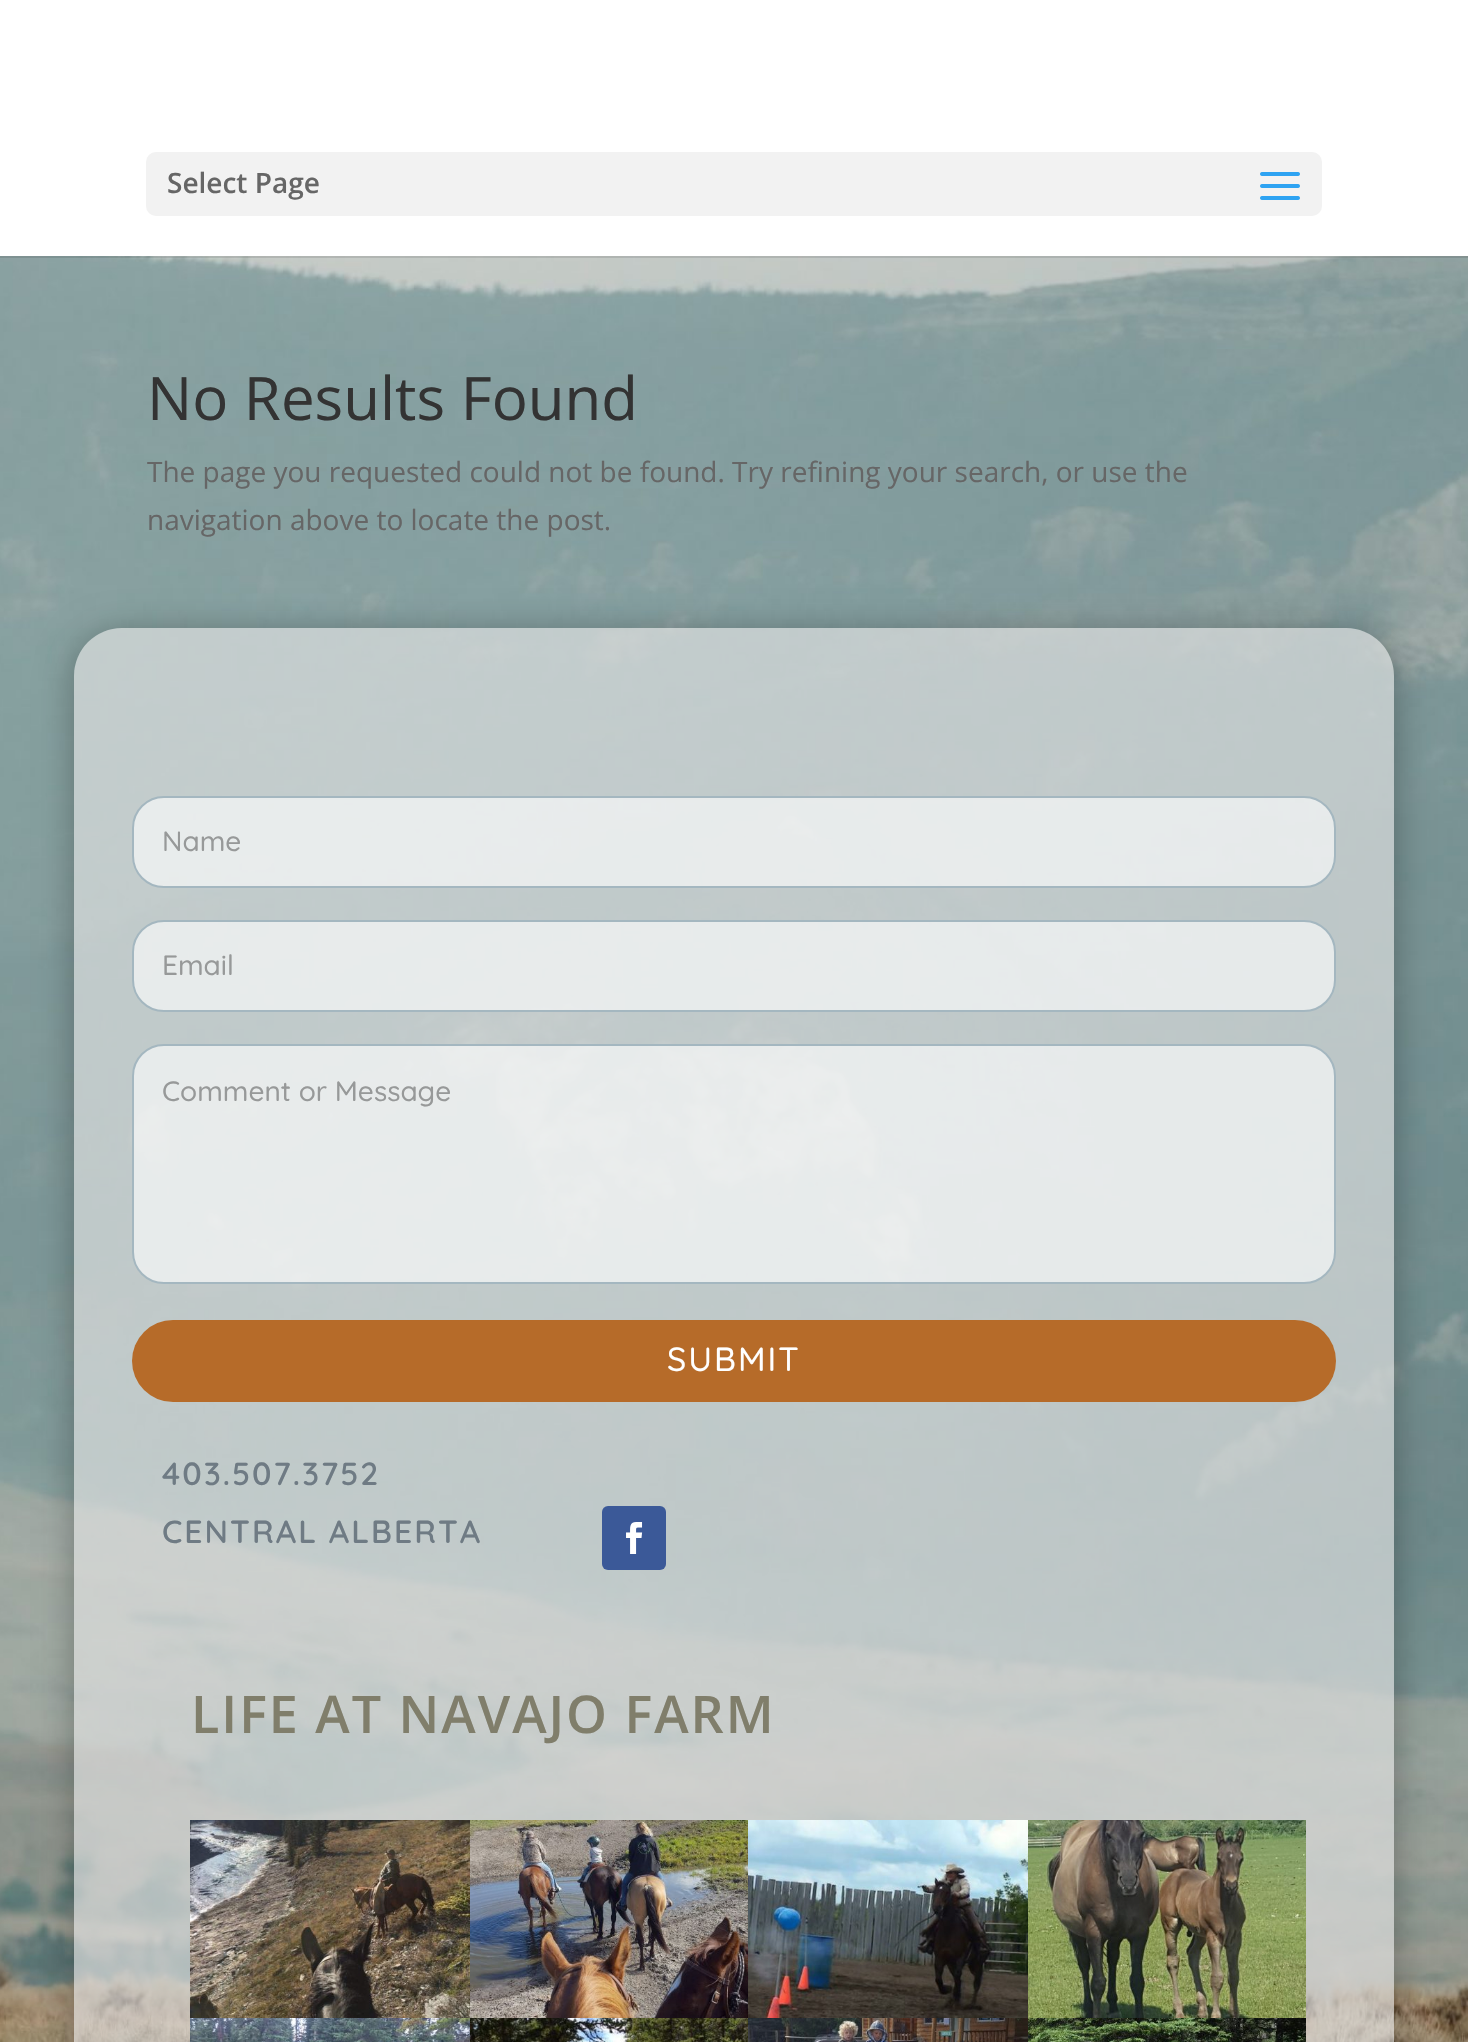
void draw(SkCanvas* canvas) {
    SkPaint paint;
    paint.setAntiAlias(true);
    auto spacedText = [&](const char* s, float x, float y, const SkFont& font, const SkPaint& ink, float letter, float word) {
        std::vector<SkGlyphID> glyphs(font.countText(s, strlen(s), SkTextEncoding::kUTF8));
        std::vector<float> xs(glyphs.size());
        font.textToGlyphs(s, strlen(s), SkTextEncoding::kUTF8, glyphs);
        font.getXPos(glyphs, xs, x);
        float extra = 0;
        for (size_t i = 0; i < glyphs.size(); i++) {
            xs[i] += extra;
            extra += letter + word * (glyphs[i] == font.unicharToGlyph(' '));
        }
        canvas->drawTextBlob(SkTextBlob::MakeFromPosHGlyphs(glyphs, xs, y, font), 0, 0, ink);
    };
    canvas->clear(0xFFFFFFFF);
    canvas->drawImageRect(SkImages::DeferredFromEncodedData(SkData::MakeFromFileName("img1.png")), SkRect::MakeXYWH(0, 256, 1468, 1786), SkSamplingOptions());
    paint.setColor(0x1A000000);
    canvas->drawRect(SkRect::MakeXYWH(0, 256, 1468, 2), paint);
    paint.setColor(0xFFF2F2F2);
    canvas->drawRoundRect(SkRect::MakeXYWH(146, 152, 1176, 64), 10, 10, paint);
    SkFont font1(fontMgr->matchFamilyStyle("Open Sans", SkFontStyle(600, SkFontStyle::kNormal_Width, SkFontStyle::kUpright_Slant)), 28);
    font1.setSubpixel(true);
    paint.setColor(0xFF666666);
    canvas->drawString("Select Page", 167, 193, font1, paint);
    canvas->drawImageRect(SkImages::DeferredFromEncodedData(SkData::MakeFromFileName("img2.png")), SkRect::MakeXYWH(1260, 172, 40, 28), SkSamplingOptions());
    SkFont font2(fontMgr->matchFamilyStyle("Open Sans", SkFontStyle::Normal()), 60);
    font2.setSubpixel(true);
    paint.setColor(0xFF333333);
    canvas->drawString("No Results Found", 147, 420, font2, paint);
    SkFont font3(fontMgr->matchFamilyStyle("Open Sans", SkFontStyle::Normal()), 28);
    font3.setSubpixel(true);
    paint.setColor(0xFF666666);
    canvas->drawString("The page you requested could not be found. Try refining your search, or use the", 147, 482, font3, paint);
    canvas->drawString("navigation above to locate the post.", 147, 530, font3, paint);
    canvas->save();
    canvas->clipPath(SkPathBuilder(SkPathFillType::kEvenOdd).moveTo(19, 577).lineTo(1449, 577).lineTo(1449, 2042).lineTo(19, 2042).close().moveTo(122, 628).lineTo(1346, 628).cubicTo(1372.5f, 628, 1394, 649.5f, 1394, 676).lineTo(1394, 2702).cubicTo(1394, 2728.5f, 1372.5f, 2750, 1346, 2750).lineTo(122, 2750).cubicTo(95.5f, 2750, 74, 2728.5f, 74, 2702).lineTo(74, 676).cubicTo(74, 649.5f, 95.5f, 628, 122, 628).close().detach(), true);
    paint.setColor(0x4D000000);
    paint.setMaskFilter(SkMaskFilter::MakeBlur(kNormal_SkBlurStyle, 18));
    canvas->drawRoundRect(SkRect::MakeXYWH(74, 632, 1320, 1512), 48, 48, paint);
    paint.setMaskFilter(nullptr);
    canvas->restore();
    paint.setColor(0xA1E6E6E6);
    canvas->drawRoundRect(SkRect::MakeXYWH(74, 628, 1320, 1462), 48, 48, paint);
    paint.setColor(0x9EFFFFFF);
    canvas->drawRoundRect(SkRect::MakeXYWH(133, 797, 1202, 90), 31, 31, paint);
    paint.setStyle(SkPaint::kStroke_Style);
    paint.setStrokeWidth(2);
    paint.setColor(0xFFA4B7C0);
    canvas->drawRoundRect(SkRect::MakeXYWH(133, 797, 1202, 90), 31, 31, paint);
    SkFont font4(fontMgr->matchFamilyStyle("Quicksand", SkFontStyle(300, SkFontStyle::kNormal_Width, SkFontStyle::kUpright_Slant)), 28);
    font4.setSubpixel(true);
    paint.setStyle(SkPaint::kFill_Style);
    paint.setColor(0xFF979999);
    canvas->drawString("Name", 162, 851, font4, paint);
    paint.setColor(0x9EFFFFFF);
    canvas->drawRoundRect(SkRect::MakeXYWH(133, 921, 1202, 90), 31, 31, paint);
    paint.setStyle(SkPaint::kStroke_Style);
    paint.setColor(0xFFA4B7C0);
    canvas->drawRoundRect(SkRect::MakeXYWH(133, 921, 1202, 90), 31, 31, paint);
    paint.setStyle(SkPaint::kFill_Style);
    paint.setColor(0xFF979999);
    canvas->drawString("Email", 162, 975, font4, paint);
    paint.setColor(0x9EFFFFFF);
    canvas->drawRoundRect(SkRect::MakeXYWH(133, 1045, 1202, 238), 31, 31, paint);
    paint.setStyle(SkPaint::kStroke_Style);
    paint.setColor(0xFFA4B7C0);
    canvas->drawRoundRect(SkRect::MakeXYWH(133, 1045, 1202, 238), 31, 31, paint);
    paint.setStyle(SkPaint::kFill_Style);
    paint.setColor(0xFF979999);
    canvas->drawString("Comment or Message", 162, 1101, font4, paint);
    paint.setColor(0xFFB66B29);
    canvas->drawRoundRect(SkRect::MakeXYWH(132, 1320, 1204, 82), 41, 41, paint);
    SkFont font5(fontMgr->matchFamilyStyle("Quicksand", SkFontStyle(300, SkFontStyle::kNormal_Width, SkFontStyle::kUpright_Slant)), 33.5f);
    font5.setSubpixel(true);
    paint.setColor(0xFFFFFFFF);
    spacedText("SUBMIT", 667, 1371, font5, paint, 2, 0);
    SkFont font6(fontMgr->matchFamilyStyle("Quicksand", SkFontStyle(600, SkFontStyle::kNormal_Width, SkFontStyle::kUpright_Slant)), 32);
    font6.setSubpixel(true);
    paint.setColor(0xFF6F7B84);
    spacedText("403.507.3752", 162, 1485, font6, paint, 2, 0);
    spacedText("CENTRAL ALBERTA", 162, 1543, font6, paint, 2, 0);
    paint.setColor(0xFF3B5998);
    canvas->drawRoundRect(SkRect::MakeXYWH(602, 1506, 64, 64), 6, 6, paint);
    canvas->drawImageRect(SkImages::DeferredFromEncodedData(SkData::MakeFromFileName("img3.png")), SkRect::MakeXYWH(626, 1522, 17, 32), SkSamplingOptions());
    SkFont font7(fontMgr->matchFamilyStyle("Open Sans", SkFontStyle(600, SkFontStyle::kNormal_Width, SkFontStyle::kUpright_Slant)), 52);
    font7.setSubpixel(true);
    paint.setColor(0xFF807E6B);
    spacedText("LIFE AT NAVAJO FARM", 191, 1733, font7, paint, 2, 0);
    canvas->drawImageRect(SkImages::DeferredFromEncodedData(SkData::MakeFromFileName("img4.png")), SkRect::MakeXYWH(190, 1820, 280, 198), SkSamplingOptions());
    canvas->drawImageRect(SkImages::DeferredFromEncodedData(SkData::MakeFromFileName("img5.png")), SkRect::MakeXYWH(470, 1820, 278, 198), SkSamplingOptions());
    canvas->drawImageRect(SkImages::DeferredFromEncodedData(SkData::MakeFromFileName("img6.png")), SkRect::MakeXYWH(748, 1820, 280, 198), SkSamplingOptions());
    canvas->drawImageRect(SkImages::DeferredFromEncodedData(SkData::MakeFromFileName("img7.png")), SkRect::MakeXYWH(1028, 1820, 278, 198), SkSamplingOptions());
    canvas->drawImageRect(SkImages::DeferredFromEncodedData(SkData::MakeFromFileName("img8.png")), SkRect::MakeXYWH(190, 2018, 280, 24), SkSamplingOptions());
    canvas->drawImageRect(SkImages::DeferredFromEncodedData(SkData::MakeFromFileName("img9.png")), SkRect::MakeXYWH(470, 2018, 278, 24), SkSamplingOptions());
    canvas->drawImageRect(SkImages::DeferredFromEncodedData(SkData::MakeFromFileName("img10.png")), SkRect::MakeXYWH(748, 2018, 280, 24), SkSamplingOptions());
    canvas->drawImageRect(SkImages::DeferredFromEncodedData(SkData::MakeFromFileName("img11.png")), SkRect::MakeXYWH(1028, 2018, 278, 24), SkSamplingOptions());
}
